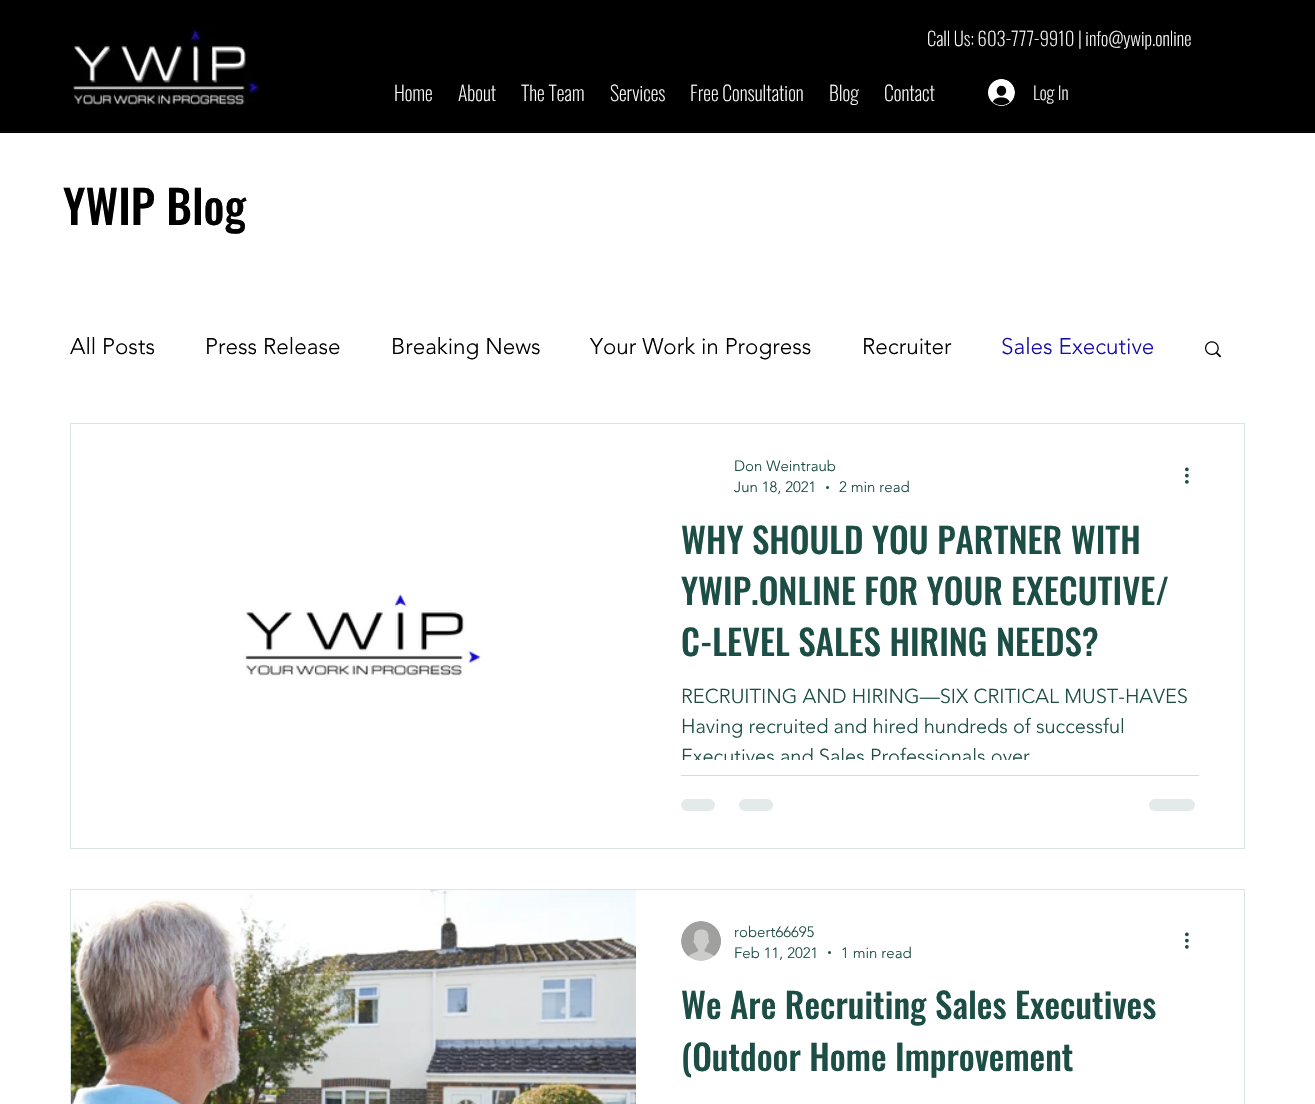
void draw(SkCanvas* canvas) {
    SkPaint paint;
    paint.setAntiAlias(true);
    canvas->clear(0xFFFFFFFF);
    paint.setColor(0xFF000000);
    canvas->drawRect(SkRect::MakeXYWH(0, 0, 1315, 133), paint);
    paint.setColor(0xFF060327);
    canvas->drawRect(SkRect::MakeXYWH(0, 131, 1315, 1), paint);
    canvas->drawImageRect(SkImages::DeferredFromEncodedData(SkData::MakeFromFileName("img1.png")), SkRect::MakeXYWH(71, 27, 191, 81), SkSamplingOptions());
    SkFont font1(fontMgr->matchFamilyStyle("Oswald", SkFontStyle(200, SkFontStyle::kNormal_Width, SkFontStyle::kUpright_Slant)), 18.75f);
    font1.setSubpixel(true);
    paint.setColor(0xFFFFFFFF);
    canvas->drawString("Call Us: 603-777-9910 | info@ywip.online", 927, 46, font1, paint);
    SkFont font2(fontMgr->matchFamilyStyle("Oswald", SkFontStyle(200, SkFontStyle::kNormal_Width, SkFontStyle::kUpright_Slant)), 20);
    font2.setSubpixel(true);
    canvas->drawString("Home", 394, 101, font2, paint);
    canvas->drawString("About", 458, 101, font2, paint);
    canvas->drawString("The Team", 521, 101, font2, paint);
    canvas->drawString("Services", 610, 101, font2, paint);
    canvas->drawString("Free Consultation", 690, 101, font2, paint);
    canvas->drawString("Blog", 829, 101, font2, paint);
    canvas->drawString("Contact", 884, 101, font2, paint);
    canvas->drawImageRect(SkImages::DeferredFromEncodedData(SkData::MakeFromFileName("img2.png")), SkRect::MakeXYWH(988, 79, 27, 27), SkSamplingOptions());
    SkFont font3(fontMgr->matchFamilyStyle("Oswald", SkFontStyle(200, SkFontStyle::kNormal_Width, SkFontStyle::kUpright_Slant)), 18);
    font3.setSubpixel(true);
    canvas->drawString("Log In", 1033, 100, font3, paint);
    SkFont font4(fontMgr->matchFamilyStyle("Oswald", SkFontStyle(500, SkFontStyle::kNormal_Width, SkFontStyle::kUpright_Slant)), 46);
    font4.setSubpixel(true);
    paint.setColor(0xFF000000);
    canvas->drawString("YWIP Blog", 63, 225, font4, paint);
    SkFont font5(fontMgr->matchFamilyStyle("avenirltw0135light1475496", SkFontStyle(300, SkFontStyle::kNormal_Width, SkFontStyle::kUpright_Slant)), 22.5f);
    font5.setSubpixel(true);
    canvas->drawString("All Posts", 70, 354, font5, paint);
    canvas->drawString("Press Release", 205, 354, font5, paint);
    canvas->drawString("Breaking News", 391, 354, font5, paint);
    canvas->drawString("Your Work in Progress", 590, 354, font5, paint);
    canvas->drawString("Recruiter", 862, 354, font5, paint);
    paint.setColor(0xFF190FA8);
    canvas->drawString("Sales Executive", 1001, 354, font5, paint);
    canvas->drawImageRect(SkImages::DeferredFromEncodedData(SkData::MakeFromFileName("img3.png")), SkRect::MakeXYWH(1205, 341, 17, 17), SkSamplingOptions());
    paint.setStyle(SkPaint::kStroke_Style);
    paint.setStrokeWidth(1);
    paint.setColor(0xFFDAE5E3);
    canvas->drawRect(SkRect::MakeXYWH(70.5f, 423.5f, 1174, 425), paint);
    canvas->drawImageRect(SkImages::DeferredFromEncodedData(SkData::MakeFromFileName("img4.png")), SkRect::MakeXYWH(218, 551, 291, 178), SkSamplingOptions());
    SkFont font6(fontMgr->matchFamilyStyle("avenirltw0135light1475496", SkFontStyle(300, SkFontStyle::kNormal_Width, SkFontStyle::kUpright_Slant)), 15);
    font6.setSubpixel(true);
    paint.setStyle(SkPaint::kFill_Style);
    paint.setColor(0xFF1C4E46);
    canvas->drawString("Don Weintraub", 734, 471, font6, paint);
    canvas->drawString("Jun 18, 2021", 734, 492, font6, paint);
    canvas->drawCircle(827.5f, 487.5f, 1.5f, paint);
    canvas->drawString("2 min read", 839, 492, font6, paint);
    canvas->drawImageRect(SkImages::DeferredFromEncodedData(SkData::MakeFromFileName("img5.png")), SkRect::MakeXYWH(1185, 467, 4, 17), SkSamplingOptions());
    SkFont font7(fontMgr->matchFamilyStyle("Oswald", SkFontStyle(500, SkFontStyle::kNormal_Width, SkFontStyle::kUpright_Slant)), 35);
    font7.setSubpixel(true);
    canvas->drawString("WHY SHOULD YOU PARTNER WITH", 681, 554, font7, paint);
    canvas->drawString("YWIP.ONLINE FOR YOUR EXECUTIVE/", 681, 605, font7, paint);
    canvas->drawString("C-LEVEL SALES HIRING NEEDS?", 681, 656, font7, paint);
    SkFont font8(fontMgr->matchFamilyStyle("avenirltw0135light1475496", SkFontStyle(300, SkFontStyle::kNormal_Width, SkFontStyle::kUpright_Slant)), 20);
    font8.setSubpixel(true);
    canvas->drawString("RECRUITING AND HIRING—SIX CRITICAL MUST-HAVES", 681, 703, font8, paint);
    canvas->drawString("Having recruited and hired hundreds of successful", 681, 733, font8, paint);
    canvas->save();
    canvas->clipRect(SkRect::MakeXYWH(681, 681, 518, 79));
    canvas->drawString("Executives and Sales Professionals over", 681, 763, font8, paint);
    canvas->restore();
    paint.setColor(0xFFD2DCDA);
    canvas->drawRect(SkRect::MakeXYWH(681, 775, 518, 1), paint);
    paint.setColor(0xFFE4EAE9);
    canvas->drawRoundRect(SkRect::MakeXYWH(681, 799, 34, 12), 6, 6, paint);
    canvas->drawRoundRect(SkRect::MakeXYWH(739, 799, 34, 12), 6, 6, paint);
    canvas->drawRoundRect(SkRect::MakeXYWH(1149, 799, 46, 12), 6, 6, paint);
    paint.setStyle(SkPaint::kStroke_Style);
    paint.setColor(0xFFDAE5E3);
    canvas->drawRect(SkRect::MakeXYWH(70.5f, 889.5f, 1174, 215), paint);
    canvas->drawImageRect(SkImages::DeferredFromEncodedData(SkData::MakeFromFileName("img6.png")), SkRect::MakeXYWH(71, 890, 565, 214), SkSamplingOptions());
    canvas->drawImageRect(SkImages::DeferredFromEncodedData(SkData::MakeFromFileName("img7.png")), SkRect::MakeXYWH(681, 921, 40, 40), SkSamplingOptions());
    paint.setStyle(SkPaint::kFill_Style);
    paint.setColor(0xFF1C4E46);
    canvas->drawString("robert66695", 734, 937, font6, paint);
    canvas->drawString("Feb 11, 2021", 734, 958, font6, paint);
    canvas->drawCircle(829.5f, 952.5f, 1.5f, paint);
    canvas->drawString("1 min read", 841, 958, font6, paint);
    canvas->drawImageRect(SkImages::DeferredFromEncodedData(SkData::MakeFromFileName("img5.png")), SkRect::MakeXYWH(1185, 932, 4, 17), SkSamplingOptions());
    canvas->drawString("We Are Recruiting Sales Executives", 681, 1019, font7, paint);
    canvas->drawString("(Outdoor Home Improvement", 681, 1071, font7, paint);
}
